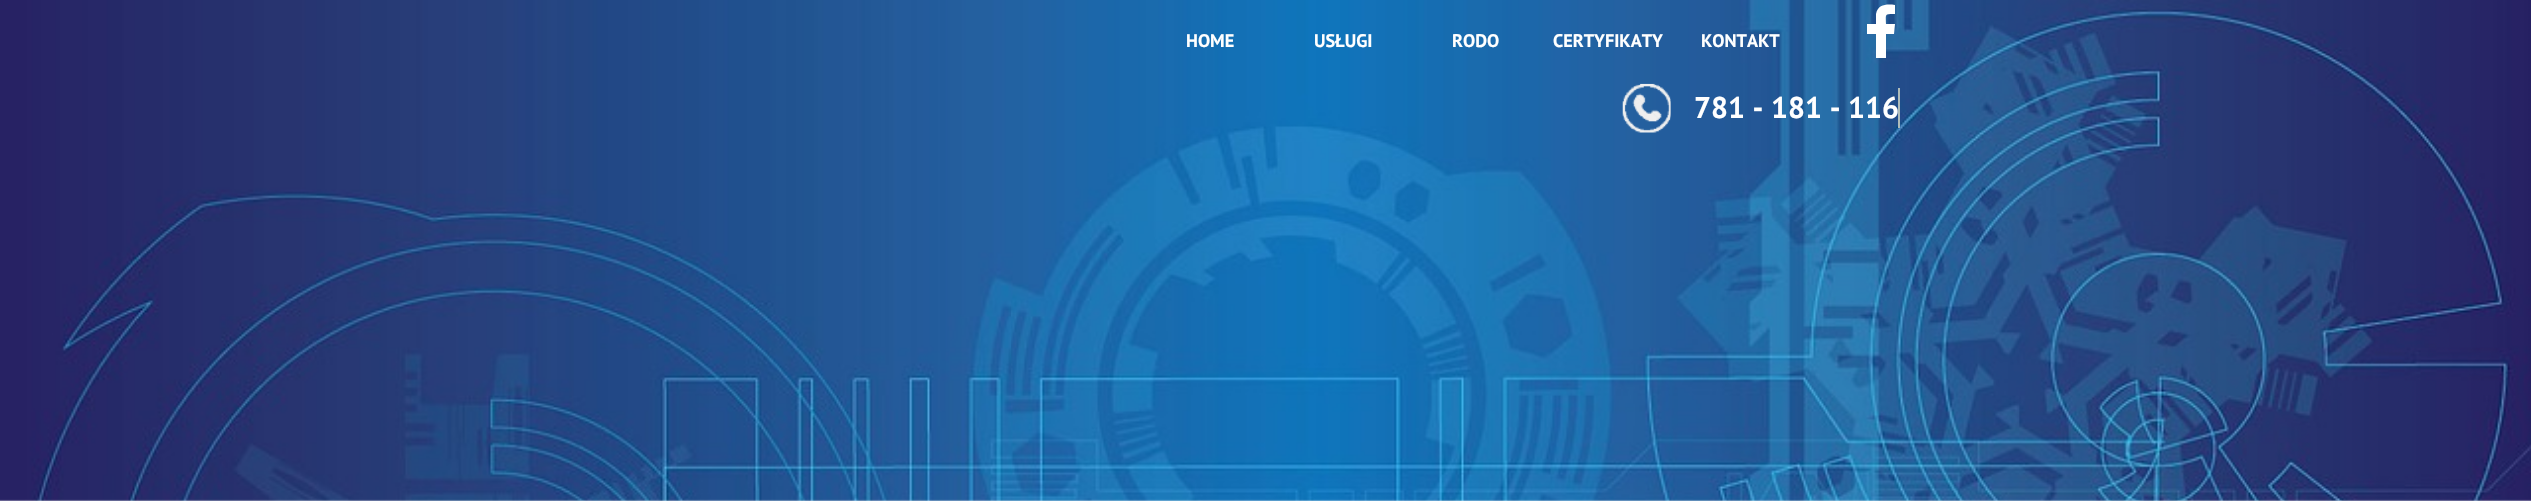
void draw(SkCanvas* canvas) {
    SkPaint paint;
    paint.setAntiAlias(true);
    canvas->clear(0xFFFFFFFF);
    canvas->drawImageRect(SkImages::DeferredFromEncodedData(SkData::MakeFromFileName("img1.png")), SkRect::MakeXYWH(0, 0, 2531, 501), SkSamplingOptions());
    SkFont font1(fontMgr->matchFamilyStyle("PT Sans", SkFontStyle::Bold()), 18.25f);
    font1.setSubpixel(true);
    paint.setColor(0xFFFFFFFF);
    canvas->drawString("HOME", 1186, 47, font1, paint);
    canvas->drawString("USŁUGI", 1314, 47, font1, paint);
    canvas->drawString("RODO", 1452, 47, font1, paint);
    canvas->drawString("CERTYFIKATY", 1553, 47, font1, paint);
    canvas->drawString("KONTAKT", 1701, 47, font1, paint);
    canvas->drawPath(SkPathBuilder().moveTo(1886, 58).lineTo(1886, 34).lineTo(1894, 34).lineTo(1895, 24).lineTo(1886, 24).cubicTo(1886, 14, 1884, 14, 1895, 14).lineTo(1895, 5).cubicTo(1887, 4, 1878, 4, 1876, 14).lineTo(1876, 24).lineTo(1867, 24).lineTo(1867, 34).lineTo(1876, 34).lineTo(1876, 58).close().detach(), paint);
    canvas->drawImageRect(SkImages::DeferredFromEncodedData(SkData::MakeFromFileName("img2.png")), SkRect::MakeXYWH(1622, 83, 49, 50), SkSamplingOptions());
    SkFont font2(fontMgr->matchFamilyStyle("PT Sans", SkFontStyle::Bold()), 30);
    font2.setSubpixel(true);
    canvas->drawString("781 - 181 - 116", 1694, 118, font2, paint);
    paint.setColor(0xFFAEBCB9);
    canvas->drawRect(SkRect::MakeXYWH(1898, 88, 2, 40), paint);
}
